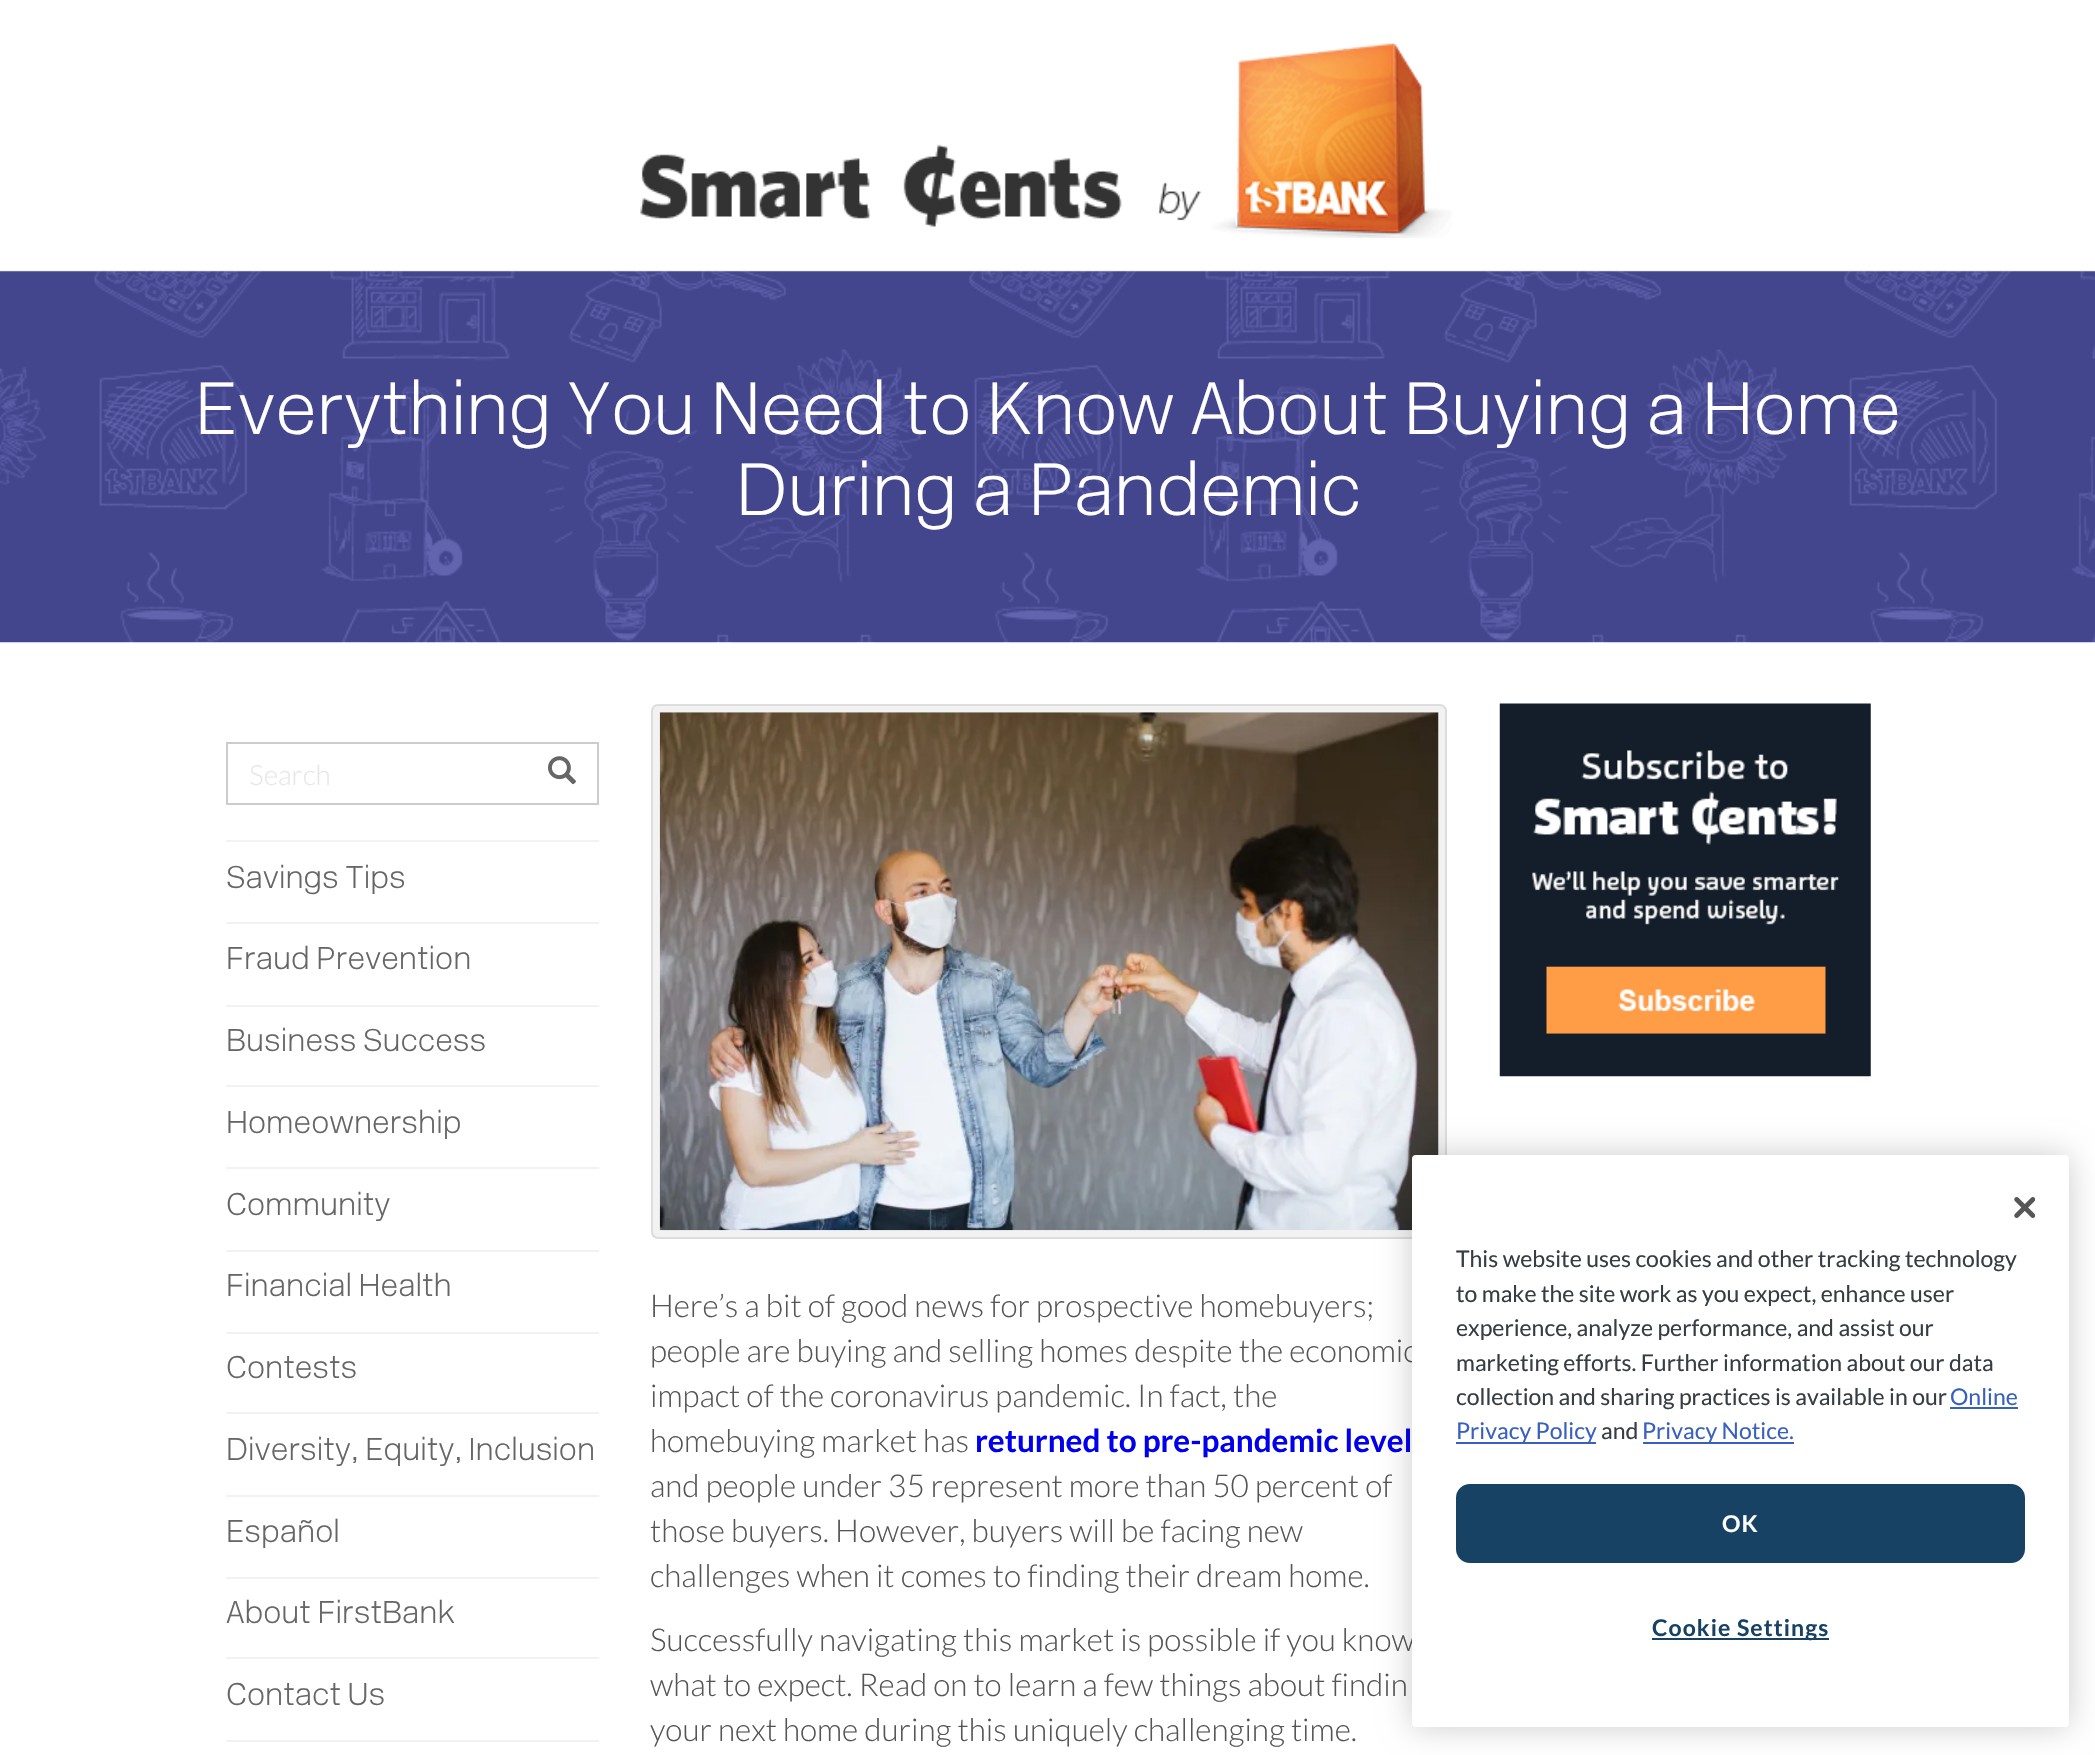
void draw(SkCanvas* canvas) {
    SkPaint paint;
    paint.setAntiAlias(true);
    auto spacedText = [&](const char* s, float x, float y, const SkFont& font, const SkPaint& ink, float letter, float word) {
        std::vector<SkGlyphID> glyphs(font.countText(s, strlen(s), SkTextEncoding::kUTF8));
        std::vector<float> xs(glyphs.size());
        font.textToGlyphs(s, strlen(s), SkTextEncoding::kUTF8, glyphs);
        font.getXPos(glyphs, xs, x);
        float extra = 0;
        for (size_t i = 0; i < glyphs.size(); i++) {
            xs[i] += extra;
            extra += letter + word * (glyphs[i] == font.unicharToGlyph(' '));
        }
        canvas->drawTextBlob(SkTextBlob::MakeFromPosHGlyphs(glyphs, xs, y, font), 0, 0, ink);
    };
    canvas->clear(0xFFFFFFFF);
    canvas->drawImageRect(SkImages::DeferredFromEncodedData(SkData::MakeFromFileName("img1.png")), SkRect::MakeXYWH(640, 43, 812, 195), SkSamplingOptions());
    paint.setColor(0xFFF2F2F2);
    canvas->drawRect(SkRect::MakeXYWH(0, 270, 2095, 2), paint);
    canvas->drawImageRect(SkImages::DeferredFromEncodedData(SkData::MakeFromFileName("img2.png")), SkRect::MakeXYWH(0, 271, 2095, 372), SkSamplingOptions());
    SkFont font1(fontMgr->matchFamilyStyle("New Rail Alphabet", SkFontStyle(200, SkFontStyle::kNormal_Width, SkFontStyle::kUpright_Slant)), 73.5f);
    font1.setSubpixel(true);
    paint.setColor(0xFFFFFFFF);
    canvas->drawString("Everything You Need to Know About Buying a Home", 195, 434, font1, paint);
    canvas->drawString("During a Pandemic", 736, 515, font1, paint);
    paint.setColor(0xFFCCCCCC);
    canvas->drawRect(SkRect::MakeXYWH(226, 742, 373, 2), paint);
    canvas->drawRect(SkRect::MakeXYWH(226, 803, 303, 2), paint);
    canvas->drawRect(SkRect::MakeXYWH(226, 742, 2, 63), paint);
    SkFont font2(fontMgr->matchFamilyStyle("Lato", SkFontStyle(300, SkFontStyle::kNormal_Width, SkFontStyle::kUpright_Slant)), 28);
    font2.setSubpixel(true);
    paint.setColor(0xFFE7E7E7);
    canvas->drawString("Search", 249, 785, font2, paint);
    paint.setColor(0xFFCCCCCC);
    canvas->drawRect(SkRect::MakeXYWH(597, 742, 2, 63), paint);
    canvas->drawRect(SkRect::MakeXYWH(527, 803, 72, 2), paint);
    canvas->drawImageRect(SkImages::DeferredFromEncodedData(SkData::MakeFromFileName("img3.png")), SkRect::MakeXYWH(548, 756, 28, 29), SkSamplingOptions());
    paint.setColor(0xFFF2F2F2);
    canvas->drawRect(SkRect::MakeXYWH(226, 840, 373, 2), paint);
    canvas->drawRect(SkRect::MakeXYWH(226, 922, 373, 2), paint);
    SkFont font3(fontMgr->matchFamilyStyle("New Rail Alphabet", SkFontStyle(200, SkFontStyle::kNormal_Width, SkFontStyle::kUpright_Slant)), 31.5f);
    font3.setSubpixel(true);
    paint.setColor(0xFF666666);
    canvas->drawString("Savings Tips", 226, 888, font3, paint);
    paint.setColor(0xFFF2F2F2);
    canvas->drawRect(SkRect::MakeXYWH(226, 1005, 373, 2), paint);
    paint.setColor(0xFF666666);
    canvas->drawString("Fraud Prevention", 226, 969, font3, paint);
    paint.setColor(0xFFF2F2F2);
    canvas->drawRect(SkRect::MakeXYWH(226, 1085, 373, 2), paint);
    paint.setColor(0xFF666666);
    canvas->drawString("Business Success", 226, 1051, font3, paint);
    paint.setColor(0xFFF2F2F2);
    canvas->drawRect(SkRect::MakeXYWH(226, 1167, 373, 2), paint);
    paint.setColor(0xFF666666);
    canvas->drawString("Homeownership", 226, 1133, font3, paint);
    paint.setColor(0xFFF2F2F2);
    canvas->drawRect(SkRect::MakeXYWH(226, 1250, 373, 2), paint);
    paint.setColor(0xFF666666);
    canvas->drawString("Community", 226, 1215, font3, paint);
    paint.setColor(0xFFF2F2F2);
    canvas->drawRect(SkRect::MakeXYWH(226, 1332, 373, 2), paint);
    paint.setColor(0xFF666666);
    canvas->drawString("Financial Health", 226, 1296, font3, paint);
    paint.setColor(0xFFF2F2F2);
    canvas->drawRect(SkRect::MakeXYWH(226, 1412, 373, 2), paint);
    paint.setColor(0xFF666666);
    canvas->drawString("Contests", 226, 1378, font3, paint);
    paint.setColor(0xFFF2F2F2);
    canvas->drawRect(SkRect::MakeXYWH(226, 1495, 373, 2), paint);
    paint.setColor(0xFF666666);
    canvas->drawString("Diversity, Equity, Inclusion", 226, 1460, font3, paint);
    paint.setColor(0xFFF2F2F2);
    canvas->drawRect(SkRect::MakeXYWH(226, 1577, 373, 2), paint);
    paint.setColor(0xFF666666);
    canvas->drawString("Español", 226, 1542, font3, paint);
    paint.setColor(0xFFF2F2F2);
    canvas->drawRect(SkRect::MakeXYWH(226, 1657, 373, 2), paint);
    paint.setColor(0xFF666666);
    canvas->drawString("About FirstBank", 226, 1623, font3, paint);
    paint.setColor(0xFFF2F2F2);
    canvas->drawRect(SkRect::MakeXYWH(226, 1740, 373, 2), paint);
    paint.setColor(0xFF666666);
    canvas->drawString("Contact Us", 226, 1705, font3, paint);
    paint.setColor(0xFFF2F2F2);
    canvas->drawRoundRect(SkRect::MakeXYWH(652, 705, 794, 533), 6, 6, paint);
    paint.setStyle(SkPaint::kStroke_Style);
    paint.setStrokeWidth(2);
    paint.setColor(0xFFDDDDDD);
    canvas->drawRoundRect(SkRect::MakeXYWH(652, 705, 794, 533), 6, 6, paint);
    canvas->drawImageRect(SkImages::DeferredFromEncodedData(SkData::MakeFromFileName("img4.png")), SkRect::MakeXYWH(659, 712, 780, 519), SkSamplingOptions());
    SkFont font4(fontMgr->matchFamilyStyle("Lato", SkFontStyle(300, SkFontStyle::kNormal_Width, SkFontStyle::kUpright_Slant)), 31.5f);
    font4.setSubpixel(true);
    paint.setStyle(SkPaint::kFill_Style);
    paint.setColor(0xFF555555);
    canvas->drawString("Here’s a bit of good news for prospective homebuyers;", 650, 1317, font4, paint);
    canvas->drawString("people are buying and selling homes despite the economic", 650, 1362, font4, paint);
    canvas->drawString("impact of the coronavirus pandemic. In fact, the", 650, 1407, font4, paint);
    canvas->drawString("homebuying market has", 650, 1452, font4, paint);
    SkFont font5(fontMgr->matchFamilyStyle("Lato", SkFontStyle::Bold()), 31.5f);
    font5.setSubpixel(true);
    paint.setColor(0xFF0000EE);
    canvas->drawString("returned to pre-pandemic level", 975, 1452, font5, paint);
    paint.setColor(0xFF555555);
    canvas->drawString("and people under 35 represent more than 50 percent of", 650, 1497, font4, paint);
    canvas->drawString("those buyers. However, buyers will be facing new", 650, 1542, font4, paint);
    canvas->drawString("challenges when it comes to finding their dream home.", 650, 1587, font4, paint);
    canvas->drawString("Successfully navigating this market is possible if you know", 650, 1651, font4, paint);
    canvas->drawString("what to expect. Read on to learn a few things about findin", 650, 1696, font4, paint);
    canvas->drawString("your next home during this uniquely challenging time.", 650, 1741, font4, paint);
    canvas->drawImageRect(SkImages::DeferredFromEncodedData(SkData::MakeFromFileName("img5.png")), SkRect::MakeXYWH(1499, 703, 372, 374), SkSamplingOptions());
    paint.setColor(0x33000000);
    paint.setMaskFilter(SkMaskFilter::MakeBlur(kNormal_SkBlurStyle, 16));
    canvas->drawRoundRect(SkRect::MakeXYWH(1412, 1155, 657, 572), 4, 4, paint);
    paint.setMaskFilter(nullptr);
    paint.setColor(0xFFFFFFFF);
    canvas->drawRoundRect(SkRect::MakeXYWH(1412, 1155, 657, 572), 4, 4, paint);
    canvas->drawImageRect(SkImages::DeferredFromEncodedData(SkData::MakeFromFileName("img6.png")), SkRect::MakeXYWH(2014, 1197, 21, 21), SkSamplingOptions());
    SkFont font6(fontMgr->matchFamilyStyle("Lato", SkFontStyle::Normal()), 23);
    font6.setSubpixel(true);
    paint.setColor(0xFF373D42);
    canvas->drawString("This website uses cookies and other tracking technology", 1456, 1267, font6, paint);
    canvas->drawString("to make the site work as you expect, enhance user", 1456, 1302, font6, paint);
    canvas->drawString("experience, analyze performance, and assist our", 1456, 1336, font6, paint);
    canvas->drawString("marketing efforts. Further information about our data", 1456, 1371, font6, paint);
    canvas->drawString("collection and sharing practices is available in our", 1456, 1405, font6, paint);
    paint.setColor(0xFF3860BE);
    canvas->drawString("Online", 1950, 1405, font6, paint);
    canvas->drawRect(SkRect::MakeXYWH(1950, 1407, 68, 2), paint);
    canvas->drawRect(SkRect::MakeXYWH(1456, 1442, 140, 2), paint);
    canvas->drawString("Privacy Policy", 1456, 1439, font6, paint);
    paint.setColor(0xFF373D42);
    canvas->drawString("and", 1601, 1439, font6, paint);
    paint.setColor(0xFF3860BE);
    canvas->drawRect(SkRect::MakeXYWH(1643, 1442, 151, 2), paint);
    canvas->drawString("Privacy Notice.", 1642, 1439, font6, paint);
    paint.setColor(0xFF174264);
    canvas->drawRoundRect(SkRect::MakeXYWH(1457, 1485, 567, 77), 13, 13, paint);
    paint.setStyle(SkPaint::kStroke_Style);
    canvas->drawRoundRect(SkRect::MakeXYWH(1457, 1485, 567, 77), 13, 13, paint);
    SkFont font7(fontMgr->matchFamilyStyle("Lato", SkFontStyle::Bold()), 23);
    font7.setSubpixel(true);
    paint.setStyle(SkPaint::kFill_Style);
    paint.setColor(0xFFFFFFFF);
    spacedText("OK", 1722, 1532, font7, paint, 1.1f, 0);
    paint.setColor(0xFF174264);
    canvas->drawRect(SkRect::MakeXYWH(1652, 1638, 177, 2), paint);
    spacedText("Cookie Settings", 1652, 1636, font7, paint, 1.1f, 0);
}
